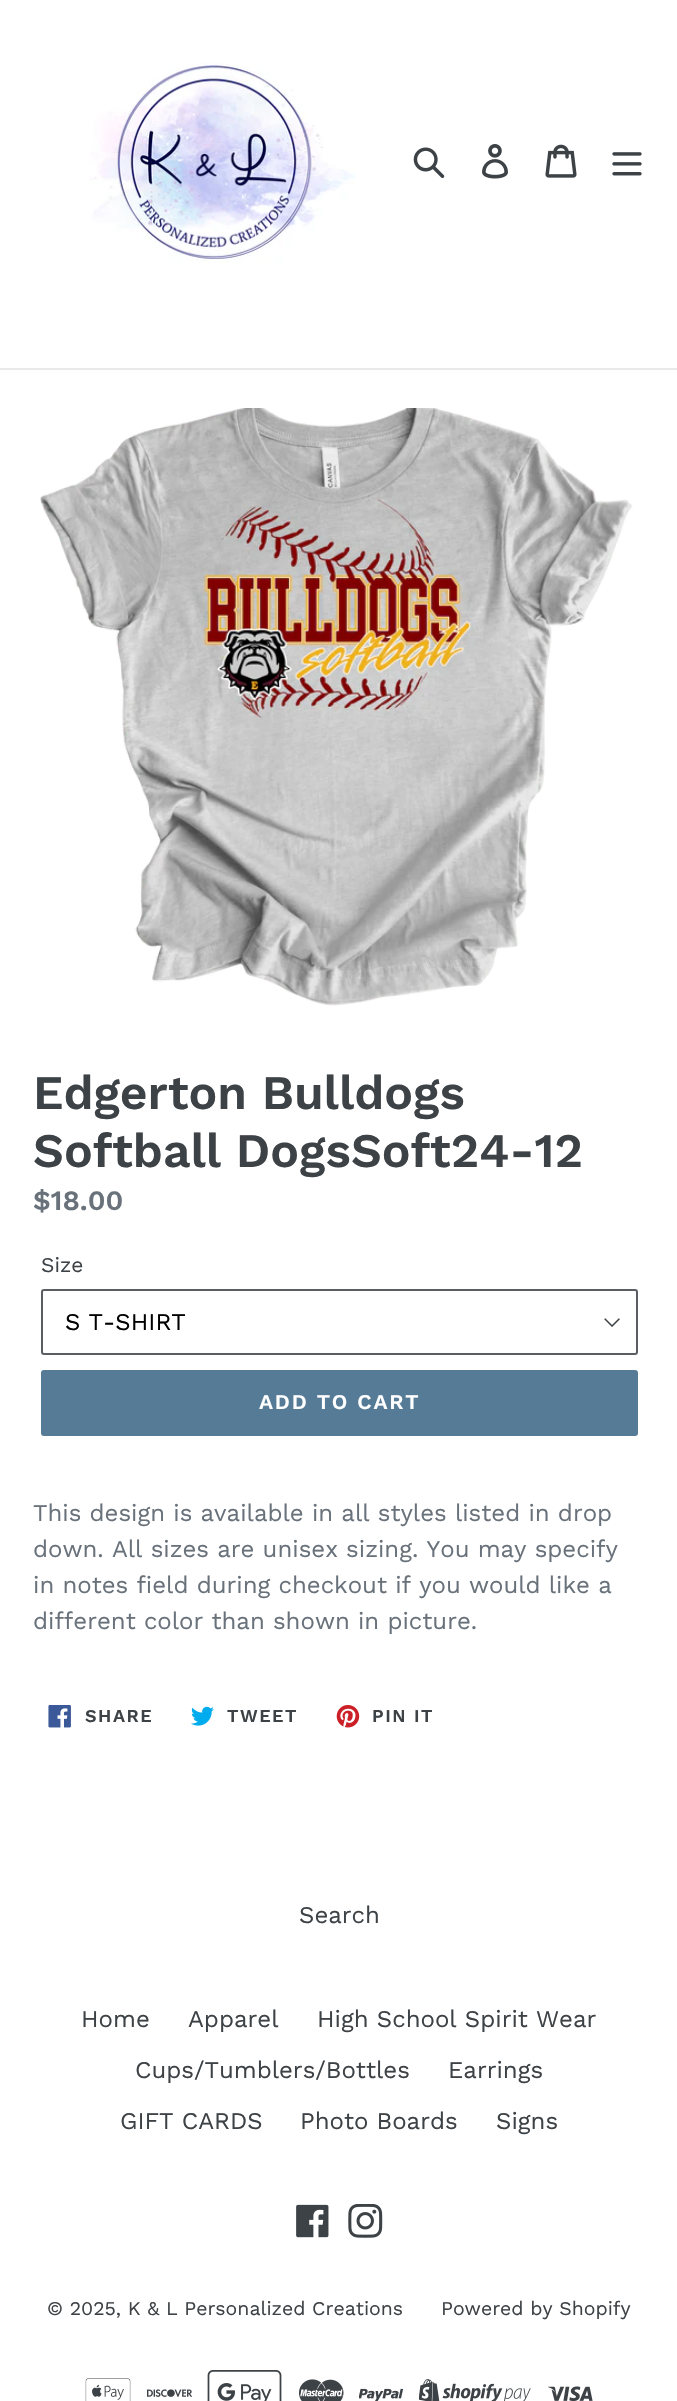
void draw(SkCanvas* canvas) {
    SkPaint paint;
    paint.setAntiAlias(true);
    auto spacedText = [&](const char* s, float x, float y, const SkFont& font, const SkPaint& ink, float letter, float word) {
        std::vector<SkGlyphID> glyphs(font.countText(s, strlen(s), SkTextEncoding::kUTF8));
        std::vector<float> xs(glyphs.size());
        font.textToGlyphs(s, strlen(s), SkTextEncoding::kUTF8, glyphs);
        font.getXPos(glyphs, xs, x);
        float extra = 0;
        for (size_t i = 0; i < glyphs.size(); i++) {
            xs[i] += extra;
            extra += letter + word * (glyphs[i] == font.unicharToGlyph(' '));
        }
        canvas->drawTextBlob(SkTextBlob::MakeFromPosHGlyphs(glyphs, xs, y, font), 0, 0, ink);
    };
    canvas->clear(0xFFFFFFFF);
    paint.setColor(0xFFE8E9EB);
    canvas->drawRect(SkRect::MakeXYWH(0, 368, 677, 2), paint);
    canvas->drawImageRect(SkImages::DeferredFromEncodedData(SkData::MakeFromFileName("img1.png")), SkRect::MakeXYWH(90, 63, 266, 200), SkSamplingOptions());
    canvas->drawImageRect(SkImages::DeferredFromEncodedData(SkData::MakeFromFileName("img2.png")), SkRect::MakeXYWH(413, 147, 32, 32), SkSamplingOptions());
    canvas->drawImageRect(SkImages::DeferredFromEncodedData(SkData::MakeFromFileName("img3.png")), SkRect::MakeXYWH(482, 144, 26, 35), SkSamplingOptions());
    canvas->drawImageRect(SkImages::DeferredFromEncodedData(SkData::MakeFromFileName("img4.png")), SkRect::MakeXYWH(545, 144, 32, 34), SkSamplingOptions());
    canvas->drawImageRect(SkImages::DeferredFromEncodedData(SkData::MakeFromFileName("img5.png")), SkRect::MakeXYWH(612, 152, 30, 24), SkSamplingOptions());
    canvas->drawImageRect(SkImages::DeferredFromEncodedData(SkData::MakeFromFileName("img6.png")), SkRect::MakeXYWH(40, 408, 593, 598), SkSamplingOptions());
    SkFont font1(fontMgr->matchFamilyStyle("Work Sans", SkFontStyle(600, SkFontStyle::kNormal_Width, SkFontStyle::kUpright_Slant)), 48);
    font1.setSubpixel(true);
    paint.setColor(0xFF3D4246);
    canvas->drawString("Edgerton Bulldogs", 33, 1109, font1, paint);
    canvas->drawString("Softball DogsSoft24-12", 33, 1167, font1, paint);
    SkFont font2(fontMgr->matchFamilyStyle("Work Sans", SkFontStyle(600, SkFontStyle::kNormal_Width, SkFontStyle::kUpright_Slant)), 28);
    font2.setSubpixel(true);
    paint.setColor(0xFF69727B);
    canvas->drawString("$18.00", 33, 1210, font2, paint);
    SkFont font3(fontMgr->matchFamilyStyle("Work Sans", SkFontStyle::Normal()), 21);
    font3.setSubpixel(true);
    paint.setColor(0xFF3D4246);
    canvas->drawString("Size", 41, 1272, font3, paint);
    canvas->drawImageRect(SkImages::DeferredFromEncodedData(SkData::MakeFromFileName("img7.png")), SkRect::MakeXYWH(604, 1318, 16, 9), SkSamplingOptions());
    paint.setStyle(SkPaint::kStroke_Style);
    paint.setStrokeWidth(2);
    paint.setColor(0xFF5A5E62);
    canvas->drawRoundRect(SkRect::MakeXYWH(42, 1290, 595, 64), 2, 2, paint);
    SkFont font4(fontMgr->matchFamilyStyle("Work Sans", SkFontStyle::Normal()), 24);
    font4.setSubpixel(true);
    paint.setStyle(SkPaint::kFill_Style);
    paint.setColor(0xFF000000);
    canvas->drawString("S T-SHIRT", 65, 1330, font4, paint);
    paint.setColor(0xFF557B97);
    canvas->drawRoundRect(SkRect::MakeXYWH(41, 1370, 597, 66), 3, 3, paint);
    SkFont font5(fontMgr->matchFamilyStyle("Work Sans", SkFontStyle(600, SkFontStyle::kNormal_Width, SkFontStyle::kUpright_Slant)), 21);
    font5.setSubpixel(true);
    paint.setColor(0xFFFFFFFF);
    spacedText("ADD TO CART", 259, 1409, font5, paint, 1.75f, 0);
    paint.setColor(0xFF69727B);
    canvas->drawString("This design is available in all styles listed in drop", 33, 1521, font4, paint);
    canvas->drawString("down. All sizes are unisex sizing. You may specify", 33, 1557, font4, paint);
    canvas->drawString("in notes field during checkout if you would like a", 33, 1593, font4, paint);
    canvas->drawString("different color than shown in picture.", 33, 1629, font4, paint);
    canvas->drawImageRect(SkImages::DeferredFromEncodedData(SkData::MakeFromFileName("img8.png")), SkRect::MakeXYWH(48, 1705, 23, 23), SkSamplingOptions());
    SkFont font6(fontMgr->matchFamilyStyle("Work Sans", SkFontStyle(600, SkFontStyle::kNormal_Width, SkFontStyle::kUpright_Slant)), 18);
    font6.setSubpixel(true);
    paint.setColor(0xFF3D4246);
    spacedText("SHARE", 85, 1722, font6, paint, 1.5f, 0);
    canvas->drawImageRect(SkImages::DeferredFromEncodedData(SkData::MakeFromFileName("img9.png")), SkRect::MakeXYWH(191, 1706, 23, 20), SkSamplingOptions());
    spacedText("TWEET", 227, 1722, font6, paint, 1.5f, 0);
    canvas->drawImageRect(SkImages::DeferredFromEncodedData(SkData::MakeFromFileName("img10.png")), SkRect::MakeXYWH(336, 1705, 24, 23), SkSamplingOptions());
    spacedText("PIN IT", 372, 1722, font6, paint, 1.5f, 0);
    canvas->drawString("Search", 299, 1923, font4, paint);
    canvas->drawString("Home", 81, 2027, font4, paint);
    canvas->drawString("Apparel", 188, 2027, font4, paint);
    canvas->drawString("High School Spirit Wear", 317, 2027, font4, paint);
    canvas->drawString("Cups/Tumblers/Bottles", 135, 2078, font4, paint);
    canvas->drawString("Earrings", 448, 2078, font4, paint);
    canvas->drawString("GIFT CARDS", 120, 2129, font4, paint);
    canvas->drawString("Photo Boards", 300, 2129, font4, paint);
    canvas->drawString("Signs", 496, 2129, font4, paint);
    canvas->drawImageRect(SkImages::DeferredFromEncodedData(SkData::MakeFromFileName("img11.png")), SkRect::MakeXYWH(296, 2204, 33, 34), SkSamplingOptions());
    canvas->drawImageRect(SkImages::DeferredFromEncodedData(SkData::MakeFromFileName("img12.png")), SkRect::MakeXYWH(348, 2204, 35, 34), SkSamplingOptions());
    SkFont font7(fontMgr->matchFamilyStyle("Work Sans", SkFontStyle::Normal()), 19.5f);
    font7.setSubpixel(true);
    canvas->drawString("© 2025, K & L Personalized Creations", 47, 2315, font7, paint);
    canvas->drawString("Powered by Shopify", 441, 2315, font7, paint);
    canvas->drawImageRect(SkImages::DeferredFromEncodedData(SkData::MakeFromFileName("img13.png")), SkRect::MakeXYWH(85, 2378, 46, 23), SkSamplingOptions());
    canvas->drawImageRect(SkImages::DeferredFromEncodedData(SkData::MakeFromFileName("img14.png")), SkRect::MakeXYWH(147, 2389, 45, 8), SkSamplingOptions());
    canvas->drawImageRect(SkImages::DeferredFromEncodedData(SkData::MakeFromFileName("img15.png")), SkRect::MakeXYWH(207, 2370, 75, 31), SkSamplingOptions());
    canvas->drawImageRect(SkImages::DeferredFromEncodedData(SkData::MakeFromFileName("img16.png")), SkRect::MakeXYWH(299, 2379, 45, 22), SkSamplingOptions());
    canvas->drawImageRect(SkImages::DeferredFromEncodedData(SkData::MakeFromFileName("img17.png")), SkRect::MakeXYWH(359, 2388, 45, 13), SkSamplingOptions());
    canvas->drawImageRect(SkImages::DeferredFromEncodedData(SkData::MakeFromFileName("img18.png")), SkRect::MakeXYWH(419, 2379, 112, 22), SkSamplingOptions());
    canvas->drawImageRect(SkImages::DeferredFromEncodedData(SkData::MakeFromFileName("img19.png")), SkRect::MakeXYWH(548, 2386, 45, 15), SkSamplingOptions());
}
